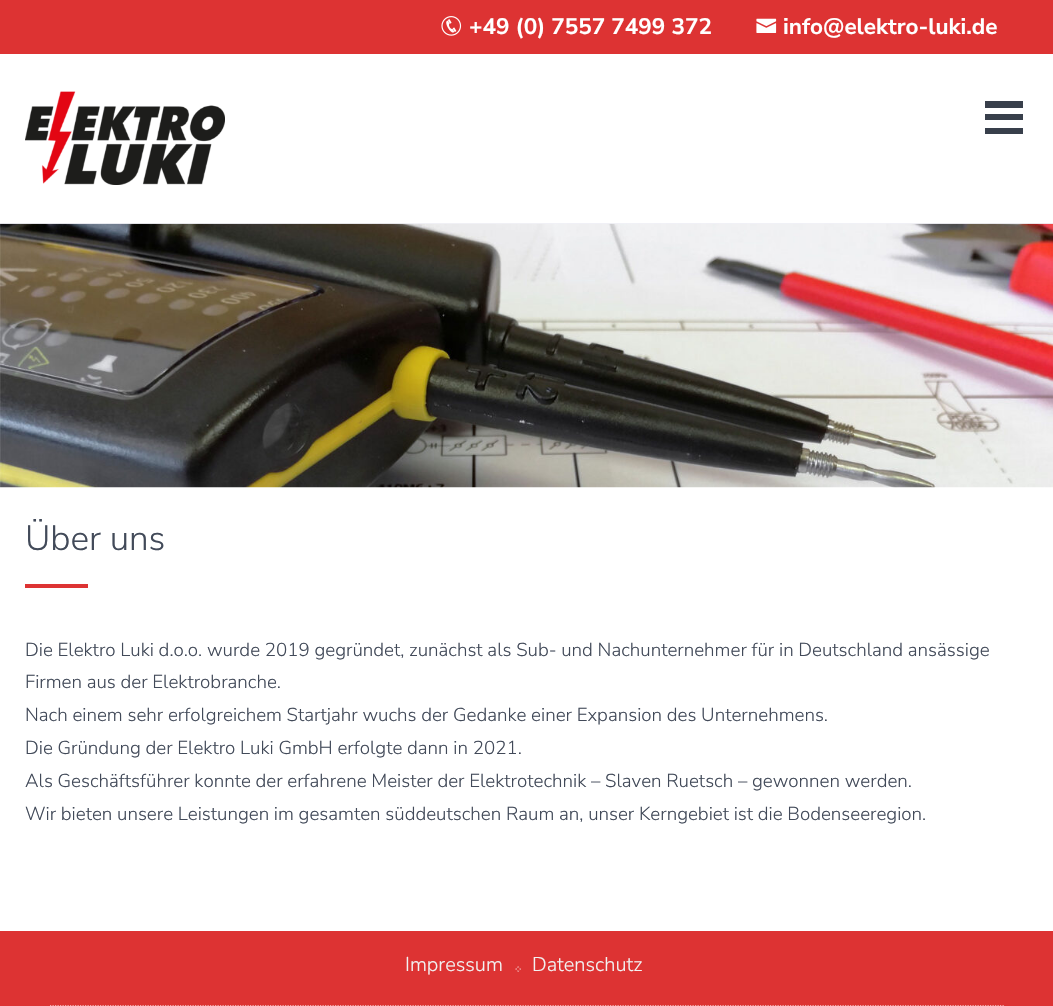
void draw(SkCanvas* canvas) {
    SkPaint paint;
    paint.setAntiAlias(true);
    canvas->clear(0xFFFFFFFF);
    paint.setColor(0xFFF0F1F6);
    canvas->drawRect(SkRect::MakeXYWH(0, 223, 1053, 1), paint);
    paint.setColor(0xFFDD3333);
    canvas->drawRect(SkRect::MakeXYWH(0, 0, 1053, 54), paint);
    canvas->drawImageRect(SkImages::DeferredFromEncodedData(SkData::MakeFromFileName("img1.png")), SkRect::MakeXYWH(441, 16, 21, 20), SkSamplingOptions());
    SkFont font1(fontMgr->matchFamilyStyle("Nunito Sans", SkFontStyle::Bold()), 22.5f);
    font1.setSubpixel(true);
    paint.setColor(0xFFFFFFFF);
    canvas->drawString("+49 (0) 7557 7499 372", 469, 34, font1, paint);
    canvas->drawImageRect(SkImages::DeferredFromEncodedData(SkData::MakeFromFileName("img2.png")), SkRect::MakeXYWH(756, 18, 21, 15), SkSamplingOptions());
    canvas->drawString("info@elektro-luki.de", 783, 34, font1, paint);
    canvas->drawImageRect(SkImages::DeferredFromEncodedData(SkData::MakeFromFileName("img3.png")), SkRect::MakeXYWH(25, 91, 200, 94), SkSamplingOptions());
    paint.setColor(0xFF383F4B);
    canvas->drawRect(SkRect::MakeXYWH(985, 101, 38, 7), paint);
    canvas->drawRect(SkRect::MakeXYWH(985, 114, 38, 6), paint);
    canvas->drawRect(SkRect::MakeXYWH(985, 128, 38, 6), paint);
    canvas->drawImageRect(SkImages::DeferredFromEncodedData(SkData::MakeFromFileName("img4.png")), SkRect::MakeXYWH(0, 223, 1053, 265), SkSamplingOptions());
    SkFont font2(fontMgr->matchFamilyStyle("Nunito Sans", SkFontStyle(300, SkFontStyle::kNormal_Width, SkFontStyle::kUpright_Slant)), 35);
    font2.setSubpixel(true);
    paint.setColor(0xFF424A59);
    canvas->drawString("Über uns", 25, 550, font2, paint);
    paint.setColor(0xFFDD3333);
    canvas->drawRect(SkRect::MakeXYWH(25, 584, 63, 4), paint);
    SkFont font3(fontMgr->matchFamilyStyle("Nunito Sans", SkFontStyle(300, SkFontStyle::kNormal_Width, SkFontStyle::kUpright_Slant)), 18.75f);
    font3.setSubpixel(true);
    paint.setColor(0xFF424A59);
    canvas->drawString("Die Elektro Luki d.o.o. wurde 2019 gegründet, zunächst als Sub- und Nachunternehmer für in Deutschland ansässige", 25, 656, font3, paint);
    canvas->drawString("Firmen aus der Elektrobranche.", 25, 688, font3, paint);
    canvas->drawString("Nach einem sehr erfolgreichem Startjahr wuchs der Gedanke einer Expansion des Unternehmens.", 25, 721, font3, paint);
    canvas->drawString("Die Gründung der Elektro Luki GmbH erfolgte dann in 2021.", 25, 754, font3, paint);
    canvas->drawString("Als Geschäftsführer konnte der erfahrene Meister der Elektrotechnik – Slaven Ruetsch – gewonnen werden.", 25, 787, font3, paint);
    canvas->drawString("Wir bieten unsere Leistungen im gesamten süddeutschen Raum an, unser Kerngebiet ist die Bodenseeregion.", 25, 820, font3, paint);
    paint.setColor(0xFFDD3333);
    canvas->drawRect(SkRect::MakeXYWH(0, 931, 1053, 75), paint);
    SkFont font4(fontMgr->matchFamilyStyle("Nunito Sans", SkFontStyle(300, SkFontStyle::kNormal_Width, SkFontStyle::kUpright_Slant)), 20);
    font4.setSubpixel(true);
    paint.setColor(0xFFF2F2F2);
    canvas->drawString("Impressum", 405, 971, font4, paint);
    canvas->drawImageRect(SkImages::DeferredFromEncodedData(SkData::MakeFromFileName("img5.png")), SkRect::MakeXYWH(515, 966, 6, 6), SkSamplingOptions());
    canvas->drawString("Datenschutz", 532, 971, font4, paint);
    paint.setStyle(SkPaint::kStroke_Style);
    paint.setStrokeWidth(1.2f);
    paint.setColor(0xFFF1ADAD);
    paint.setPathEffect(SkDashPathEffect::Make({{1.25f, 1.25f}}, 0));
    canvas->drawPath(SkPathBuilder().moveTo(50, 1005.5f).lineTo(1004, 1005.5f).detach(), paint);
    paint.setPathEffect(nullptr);
}
